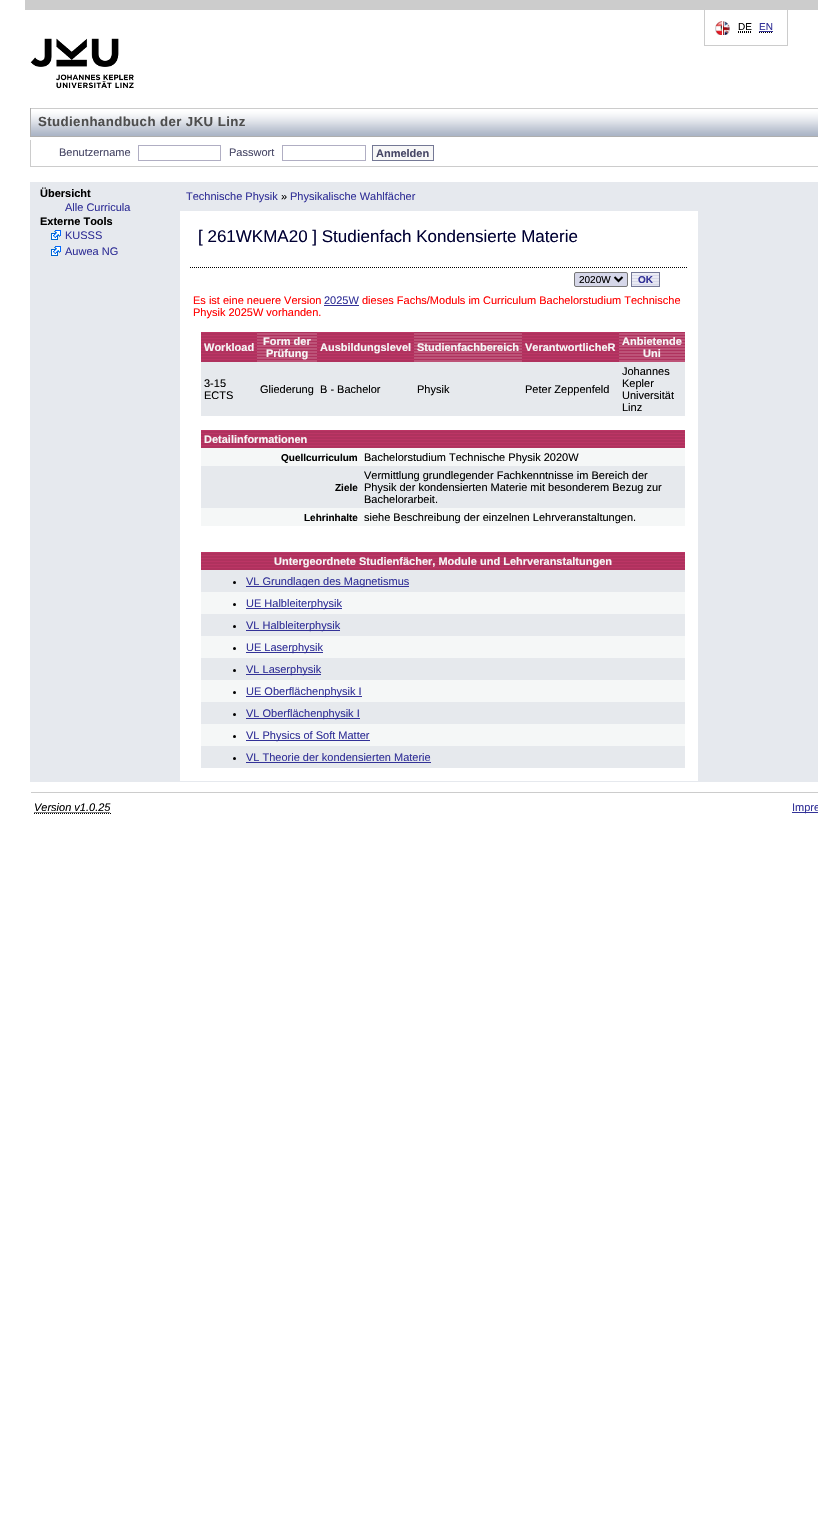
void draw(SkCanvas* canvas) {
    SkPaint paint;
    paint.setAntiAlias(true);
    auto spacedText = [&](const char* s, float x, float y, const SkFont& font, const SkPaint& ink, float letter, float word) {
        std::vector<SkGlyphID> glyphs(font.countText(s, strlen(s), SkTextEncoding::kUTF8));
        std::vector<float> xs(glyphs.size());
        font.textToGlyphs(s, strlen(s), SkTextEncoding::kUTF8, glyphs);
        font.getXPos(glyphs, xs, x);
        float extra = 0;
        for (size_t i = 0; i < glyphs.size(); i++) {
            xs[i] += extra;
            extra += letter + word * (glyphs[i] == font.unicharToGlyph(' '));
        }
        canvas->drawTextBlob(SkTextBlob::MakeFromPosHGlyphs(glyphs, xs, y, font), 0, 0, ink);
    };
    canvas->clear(0xFFFFFFFF);
    paint.setColor(0xFFCCCCCC);
    canvas->drawRect(SkRect::MakeXYWH(25, 0, 793, 10), paint);
    canvas->drawRect(SkRect::MakeXYWH(787, 10, 1, 36), paint);
    canvas->drawRect(SkRect::MakeXYWH(704, 45, 84, 1), paint);
    canvas->drawRect(SkRect::MakeXYWH(704, 10, 1, 36), paint);
    canvas->drawImageRect(SkImages::DeferredFromEncodedData(SkData::MakeFromFileName("img1.png")), SkRect::MakeXYWH(715, 21, 15, 14), SkSamplingOptions());
    SkFont font1(fontMgr->matchFamilyStyle("Liberation Sans", SkFontStyle::Normal()), 10);
    font1.setSubpixel(true);
    paint.setColor(0xFF000000);
    canvas->drawString("DE", 738, 30, font1, paint);
    paint.setStyle(SkPaint::kStroke_Style);
    paint.setStrokeWidth(1);
    paint.setPathEffect(SkDashPathEffect::Make({{1, 1}}, 0));
    canvas->drawPath(SkPathBuilder().moveTo(738, 32.5f).lineTo(751, 32.5f).moveTo(738, 31.5f).lineTo(751.5f, 31.5f).detach(), paint);
    paint.setPathEffect(nullptr);
    paint.setStyle(SkPaint::kFill_Style);
    paint.setColor(0xFF333298);
    canvas->drawString("EN", 759, 30, font1, paint);
    paint.setStyle(SkPaint::kStroke_Style);
    paint.setColor(0xFF000000);
    paint.setPathEffect(SkDashPathEffect::Make({{1, 1}}, 0));
    canvas->drawPath(SkPathBuilder().moveTo(759, 32.5f).lineTo(773, 32.5f).detach(), paint);
    paint.setPathEffect(nullptr);
    paint.setStyle(SkPaint::kFill_Style);
    paint.setColor(0xFF333298);
    canvas->drawRect(SkRect::MakeXYWH(759, 31, 14, 1), paint);
    canvas->drawImageRect(SkImages::DeferredFromEncodedData(SkData::MakeFromFileName("img2.png")), SkRect::MakeXYWH(30, 38, 104, 51), SkSamplingOptions());
    canvas->drawImageRect(SkImages::DeferredFromEncodedData(SkData::MakeFromFileName("img3.png")), SkRect::MakeXYWH(31, 108, 787, 28), SkSamplingOptions());
    paint.setColor(0xFFAEAEAE);
    canvas->drawRect(SkRect::MakeXYWH(30, 136, 788, 1), paint);
    canvas->drawRect(SkRect::MakeXYWH(30, 108, 1, 29), paint);
    SkFont font2(fontMgr->matchFamilyStyle("Liberation Sans", SkFontStyle::Bold()), 13.25f);
    font2.setSubpixel(true);
    paint.setColor(0xFF4E4E4E);
    spacedText("Studienhandbuch der JKU Linz", 38, 126, font2, paint, 0.4f, 0);
    paint.setColor(0xFFCCCCCC);
    canvas->drawRect(SkRect::MakeXYWH(30, 166, 788, 1), paint);
    canvas->drawRect(SkRect::MakeXYWH(30, 140, 1, 27), paint);
    SkFont font3(fontMgr->matchFamilyStyle("Liberation Sans", SkFontStyle::Normal()), 11);
    font3.setSubpixel(true);
    paint.setColor(0xFF474766);
    canvas->drawString("Benutzername", 59, 156, font3, paint);
    paint.setStyle(SkPaint::kStroke_Style);
    paint.setColor(0xFFB0AEC3);
    canvas->drawRect(SkRect::MakeXYWH(138.5f, 145.5f, 82, 15), paint);
    paint.setStyle(SkPaint::kFill_Style);
    paint.setColor(0xFF474766);
    canvas->drawString("Passwort", 229, 156, font3, paint);
    paint.setStyle(SkPaint::kStroke_Style);
    paint.setColor(0xFFB0AEC3);
    canvas->drawRect(SkRect::MakeXYWH(282.5f, 145.5f, 83, 15), paint);
    paint.setStyle(SkPaint::kFill_Style);
    paint.setColor(0xFFF7F7F7);
    canvas->drawRect(SkRect::MakeXYWH(372.5f, 145.5f, 61, 15), paint);
    paint.setStyle(SkPaint::kStroke_Style);
    paint.setColor(0xFF747895);
    canvas->drawRect(SkRect::MakeXYWH(372.5f, 145.5f, 61, 15), paint);
    SkFont font4(fontMgr->matchFamilyStyle("Liberation Sans", SkFontStyle::Bold()), 11);
    font4.setSubpixel(true);
    paint.setStyle(SkPaint::kFill_Style);
    paint.setColor(0xFF474766);
    canvas->drawString("Anmelden", 376, 157, font4, paint);
    paint.setColor(0xFFE6E9EE);
    canvas->drawRect(SkRect::MakeXYWH(30, 182, 150, 599), paint);
    paint.setColor(0xFF000000);
    canvas->drawString("Übersicht", 40, 197, font4, paint);
    paint.setColor(0xFF333298);
    canvas->drawString("Alle Curricula", 65, 211, font3, paint);
    paint.setColor(0xFF000000);
    canvas->drawString("Externe Tools", 40, 225, font4, paint);
    canvas->drawImageRect(SkImages::DeferredFromEncodedData(SkData::MakeFromFileName("img4.png")), SkRect::MakeXYWH(51, 230, 10, 10), SkSamplingOptions());
    paint.setColor(0xFF333298);
    canvas->drawString("KUSSS", 65, 239, font3, paint);
    canvas->drawImageRect(SkImages::DeferredFromEncodedData(SkData::MakeFromFileName("img4.png")), SkRect::MakeXYWH(51, 246, 10, 10), SkSamplingOptions());
    canvas->drawString("Auwea NG", 65, 255, font3, paint);
    paint.setColor(0xFFE6E9EE);
    canvas->drawRect(SkRect::MakeXYWH(180, 182, 638, 29), paint);
    paint.setColor(0xFF333298);
    canvas->drawString("Technische Physik", 186, 200, font3, paint);
    paint.setColor(0xFF000000);
    canvas->drawString("»", 281, 200, font3, paint);
    paint.setColor(0xFF333298);
    canvas->drawString("Physikalische Wahlfächer", 290, 200, font3, paint);
    paint.setColor(0xFFE6E9EE);
    canvas->drawRect(SkRect::MakeXYWH(698, 210, 1, 571), paint);
    paint.setStyle(SkPaint::kStroke_Style);
    paint.setColor(0xFF000000);
    paint.setPathEffect(SkDashPathEffect::Make({{1, 1}}, 0));
    canvas->drawPath(SkPathBuilder().moveTo(190, 267.5f).lineTo(688, 267.5f).detach(), paint);
    paint.setPathEffect(nullptr);
    SkFont font5(fontMgr->matchFamilyStyle("Liberation Sans", SkFontStyle::Normal()), 17);
    font5.setSubpixel(true);
    paint.setStyle(SkPaint::kFill_Style);
    paint.setColor(0xFF000033);
    canvas->drawString("[ 261WKMA20 ] Studienfach Kondensierte Materie", 198, 242, font5, paint);
    paint.setColor(0xFFD6D7E9);
    canvas->drawRoundRect(SkRect::MakeXYWH(574.5f, 272.5f, 53, 14), 1.5f, 1.5f, paint);
    paint.setStyle(SkPaint::kStroke_Style);
    paint.setColor(0xFF767676);
    canvas->drawRoundRect(SkRect::MakeXYWH(574.5f, 272.5f, 53, 14), 1.5f, 1.5f, paint);
    paint.setStrokeWidth(2);
    paint.setColor(0xFF000000);
    canvas->drawPath(SkPathBuilder().moveTo(614.5f, 277).lineTo(618.5f, 281).lineTo(622.5f, 277).detach(), paint);
    paint.setStyle(SkPaint::kFill_Style);
    canvas->drawString("2020W", 579, 283, font1, paint);
    canvas->drawImageRect(SkImages::DeferredFromEncodedData(SkData::MakeFromFileName("img5.png")), SkRect::MakeXYWH(632, 273, 27, 13), SkSamplingOptions());
    paint.setStyle(SkPaint::kStroke_Style);
    paint.setStrokeWidth(1);
    paint.setColor(0xFF747895);
    canvas->drawRect(SkRect::MakeXYWH(631.5f, 272.5f, 28, 14), paint);
    SkFont font6(fontMgr->matchFamilyStyle("Liberation Sans", SkFontStyle::Bold()), 10);
    font6.setSubpixel(true);
    paint.setStyle(SkPaint::kFill_Style);
    paint.setColor(0xFF333298);
    canvas->drawString("OK", 638, 283, font6, paint);
    paint.setColor(0xFFFF0000);
    canvas->drawString("Es ist eine neuere Version", 193, 304, font3, paint);
    paint.setColor(0xFF333298);
    canvas->drawString("2025W", 324, 304, font3, paint);
    canvas->drawRect(SkRect::MakeXYWH(324, 305, 35, 1), paint);
    paint.setColor(0xFFFF0000);
    canvas->drawString("dieses Fachs/Moduls im Curriculum Bachelorstudium Technische", 362, 304, font3, paint);
    canvas->drawString("Physik 2025W vorhanden.", 193, 316, font3, paint);
    canvas->drawImageRect(SkImages::DeferredFromEncodedData(SkData::MakeFromFileName("img6.png")), SkRect::MakeXYWH(201, 332, 56, 30), SkSamplingOptions());
    paint.setColor(0xFFF7F7F7);
    canvas->drawString("Workload", 204, 351, font4, paint);
    canvas->drawImageRect(SkImages::DeferredFromEncodedData(SkData::MakeFromFileName("img7.png")), SkRect::MakeXYWH(257, 332, 60, 30), SkSamplingOptions());
    canvas->drawString("Form der", 263, 345, font4, paint);
    canvas->drawString("Prüfung", 266, 357, font4, paint);
    canvas->drawImageRect(SkImages::DeferredFromEncodedData(SkData::MakeFromFileName("img8.png")), SkRect::MakeXYWH(317, 332, 97, 30), SkSamplingOptions());
    canvas->drawString("Ausbildungslevel", 320, 351, font4, paint);
    canvas->drawImageRect(SkImages::DeferredFromEncodedData(SkData::MakeFromFileName("img9.png")), SkRect::MakeXYWH(414, 332, 108, 30), SkSamplingOptions());
    canvas->drawString("Studienfachbereich", 417, 351, font4, paint);
    canvas->drawImageRect(SkImages::DeferredFromEncodedData(SkData::MakeFromFileName("img8.png")), SkRect::MakeXYWH(522, 332, 97, 30), SkSamplingOptions());
    canvas->drawString("VerantwortlicheR", 525, 351, font4, paint);
    canvas->drawImageRect(SkImages::DeferredFromEncodedData(SkData::MakeFromFileName("img10.png")), SkRect::MakeXYWH(619, 332, 66, 30), SkSamplingOptions());
    canvas->drawString("Anbietende", 622, 345, font4, paint);
    canvas->drawString("Uni", 643, 357, font4, paint);
    paint.setColor(0xFFE6E9ED);
    canvas->drawRect(SkRect::MakeXYWH(201, 362, 484, 54), paint);
    paint.setColor(0xFF000000);
    canvas->drawString("3-15", 204, 387, font3, paint);
    canvas->drawString("ECTS", 204, 399, font3, paint);
    canvas->drawString("Gliederung", 260, 393, font3, paint);
    canvas->drawString("B - Bachelor", 320, 393, font3, paint);
    canvas->drawString("Physik", 417, 393, font3, paint);
    canvas->drawString("Peter Zeppenfeld", 525, 393, font3, paint);
    canvas->drawString("Johannes", 622, 375, font3, paint);
    canvas->drawString("Kepler", 622, 387, font3, paint);
    canvas->drawString("Universität", 622, 399, font3, paint);
    canvas->drawString("Linz", 622, 411, font3, paint);
    canvas->drawImageRect(SkImages::DeferredFromEncodedData(SkData::MakeFromFileName("img11.png")), SkRect::MakeXYWH(201, 430, 484, 18), SkSamplingOptions());
    paint.setColor(0xFFF7F7F7);
    canvas->drawString("Detailinformationen", 204, 443, font4, paint);
    paint.setColor(0xFFF5F7F7);
    canvas->drawRect(SkRect::MakeXYWH(201, 448, 484, 18), paint);
    paint.setColor(0xFF000000);
    canvas->drawString("Quellcurriculum", 281, 461, font6, paint);
    canvas->drawString("Bachelorstudium Technische Physik 2020W", 364, 461, font3, paint);
    paint.setColor(0xFFE6E9ED);
    canvas->drawRect(SkRect::MakeXYWH(201, 466, 484, 42), paint);
    paint.setColor(0xFF000000);
    canvas->drawString("Ziele", 335, 491, font6, paint);
    canvas->drawString("Vermittlung grundlegender Fachkenntnisse im Bereich der", 364, 479, font3, paint);
    canvas->drawString("Physik der kondensierten Materie mit besonderem Bezug zur", 364, 491, font3, paint);
    canvas->drawString("Bachelorarbeit.", 364, 503, font3, paint);
    paint.setColor(0xFFF5F7F7);
    canvas->drawRect(SkRect::MakeXYWH(201, 508, 484, 18), paint);
    paint.setColor(0xFF000000);
    canvas->drawString("Lehrinhalte", 304, 521, font6, paint);
    canvas->drawString("siehe Beschreibung der einzelnen Lehrveranstaltungen.", 364, 521, font3, paint);
    canvas->drawImageRect(SkImages::DeferredFromEncodedData(SkData::MakeFromFileName("img11.png")), SkRect::MakeXYWH(201, 552, 484, 18), SkSamplingOptions());
    paint.setColor(0xFFF7F7F7);
    canvas->drawString("Untergeordnete Studienfächer, Module und Lehrveranstaltungen", 274, 565, font4, paint);
    paint.setColor(0xFFE6E9ED);
    canvas->drawRect(SkRect::MakeXYWH(201, 570, 484, 22), paint);
    paint.setColor(0xFF000000);
    canvas->drawCircle(234.5f, 582.5f, 1.5f, paint);
    paint.setColor(0xFF333298);
    canvas->drawRect(SkRect::MakeXYWH(246, 586, 163, 1), paint);
    canvas->drawString("VL Grundlagen des Magnetismus", 246, 585, font3, paint);
    paint.setColor(0xFFF5F7F7);
    canvas->drawRect(SkRect::MakeXYWH(201, 592, 484, 22), paint);
    paint.setColor(0xFF000000);
    canvas->drawCircle(234.5f, 604.5f, 1.5f, paint);
    paint.setColor(0xFF333298);
    canvas->drawRect(SkRect::MakeXYWH(246, 608, 96, 1), paint);
    canvas->drawString("UE Halbleiterphysik", 246, 607, font3, paint);
    paint.setColor(0xFFE6E9ED);
    canvas->drawRect(SkRect::MakeXYWH(201, 614, 484, 22), paint);
    paint.setColor(0xFF000000);
    canvas->drawCircle(234.5f, 626.5f, 1.5f, paint);
    paint.setColor(0xFF333298);
    canvas->drawRect(SkRect::MakeXYWH(246, 630, 94, 1), paint);
    canvas->drawString("VL Halbleiterphysik", 246, 629, font3, paint);
    paint.setColor(0xFFF5F7F7);
    canvas->drawRect(SkRect::MakeXYWH(201, 636, 484, 22), paint);
    paint.setColor(0xFF000000);
    canvas->drawCircle(234.5f, 648.5f, 1.5f, paint);
    paint.setColor(0xFF333298);
    canvas->drawRect(SkRect::MakeXYWH(246, 652, 77, 1), paint);
    canvas->drawString("UE Laserphysik", 246, 651, font3, paint);
    paint.setColor(0xFFE6E9ED);
    canvas->drawRect(SkRect::MakeXYWH(201, 658, 484, 22), paint);
    paint.setColor(0xFF000000);
    canvas->drawCircle(234.5f, 670.5f, 1.5f, paint);
    paint.setColor(0xFF333298);
    canvas->drawRect(SkRect::MakeXYWH(246, 674, 75, 1), paint);
    canvas->drawString("VL Laserphysik", 246, 673, font3, paint);
    paint.setColor(0xFFF5F7F7);
    canvas->drawRect(SkRect::MakeXYWH(201, 680, 484, 22), paint);
    paint.setColor(0xFF000000);
    canvas->drawCircle(234.5f, 692.5f, 1.5f, paint);
    paint.setColor(0xFF333298);
    canvas->drawRect(SkRect::MakeXYWH(246, 696, 116, 1), paint);
    canvas->drawString("UE Oberflächenphysik I", 246, 695, font3, paint);
    paint.setColor(0xFFE6E9ED);
    canvas->drawRect(SkRect::MakeXYWH(201, 702, 484, 22), paint);
    paint.setColor(0xFF000000);
    canvas->drawCircle(234.5f, 714.5f, 1.5f, paint);
    paint.setColor(0xFF333298);
    canvas->drawRect(SkRect::MakeXYWH(246, 718, 114, 1), paint);
    canvas->drawString("VL Oberflächenphysik I", 246, 717, font3, paint);
    paint.setColor(0xFFF5F7F7);
    canvas->drawRect(SkRect::MakeXYWH(201, 724, 484, 22), paint);
    paint.setColor(0xFF000000);
    canvas->drawCircle(234.5f, 736.5f, 1.5f, paint);
    paint.setColor(0xFF333298);
    canvas->drawRect(SkRect::MakeXYWH(246, 740, 124, 1), paint);
    canvas->drawString("VL Physics of Soft Matter", 246, 739, font3, paint);
    paint.setColor(0xFFE6E9ED);
    canvas->drawRect(SkRect::MakeXYWH(201, 746, 484, 22), paint);
    paint.setColor(0xFF000000);
    canvas->drawCircle(234.5f, 758.5f, 1.5f, paint);
    paint.setColor(0xFF333298);
    canvas->drawString("VL Theorie der kondensierten Materie", 246, 761, font3, paint);
    canvas->drawRect(SkRect::MakeXYWH(246, 762, 185, 1), paint);
    paint.setColor(0xFFE6E9EE);
    canvas->drawRect(SkRect::MakeXYWH(699, 211, 119, 570), paint);
    canvas->drawRect(SkRect::MakeXYWH(30, 781, 788, 1), paint);
    paint.setColor(0xFFCCCCCC);
    canvas->drawRect(SkRect::MakeXYWH(31, 792, 787, 1), paint);
    SkFont font7(fontMgr->matchFamilyStyle("Liberation Sans", SkFontStyle::Italic()), 11);
    font7.setSubpixel(true);
    paint.setColor(0xFF000000);
    canvas->drawString("Version v1.0.25", 34, 811, font7, paint);
    paint.setStyle(SkPaint::kStroke_Style);
    paint.setPathEffect(SkDashPathEffect::Make({{1, 1}}, 0));
    canvas->drawPath(SkPathBuilder().moveTo(34, 813.5f).lineTo(111, 813.5f).detach(), paint);
    paint.setPathEffect(nullptr);
    paint.setPathEffect(SkDashPathEffect::Make({{1, 1}}, 0));
    canvas->drawPath(SkPathBuilder().moveTo(34.5f, 812.5f).lineTo(110.5f, 812.5f).detach(), paint);
    paint.setPathEffect(nullptr);
    paint.setStyle(SkPaint::kFill_Style);
    paint.setColor(0xFF333298);
    canvas->drawRect(SkRect::MakeXYWH(792, 812, 26, 1), paint);
    canvas->drawString("Impre", 792, 811, font3, paint);
}
